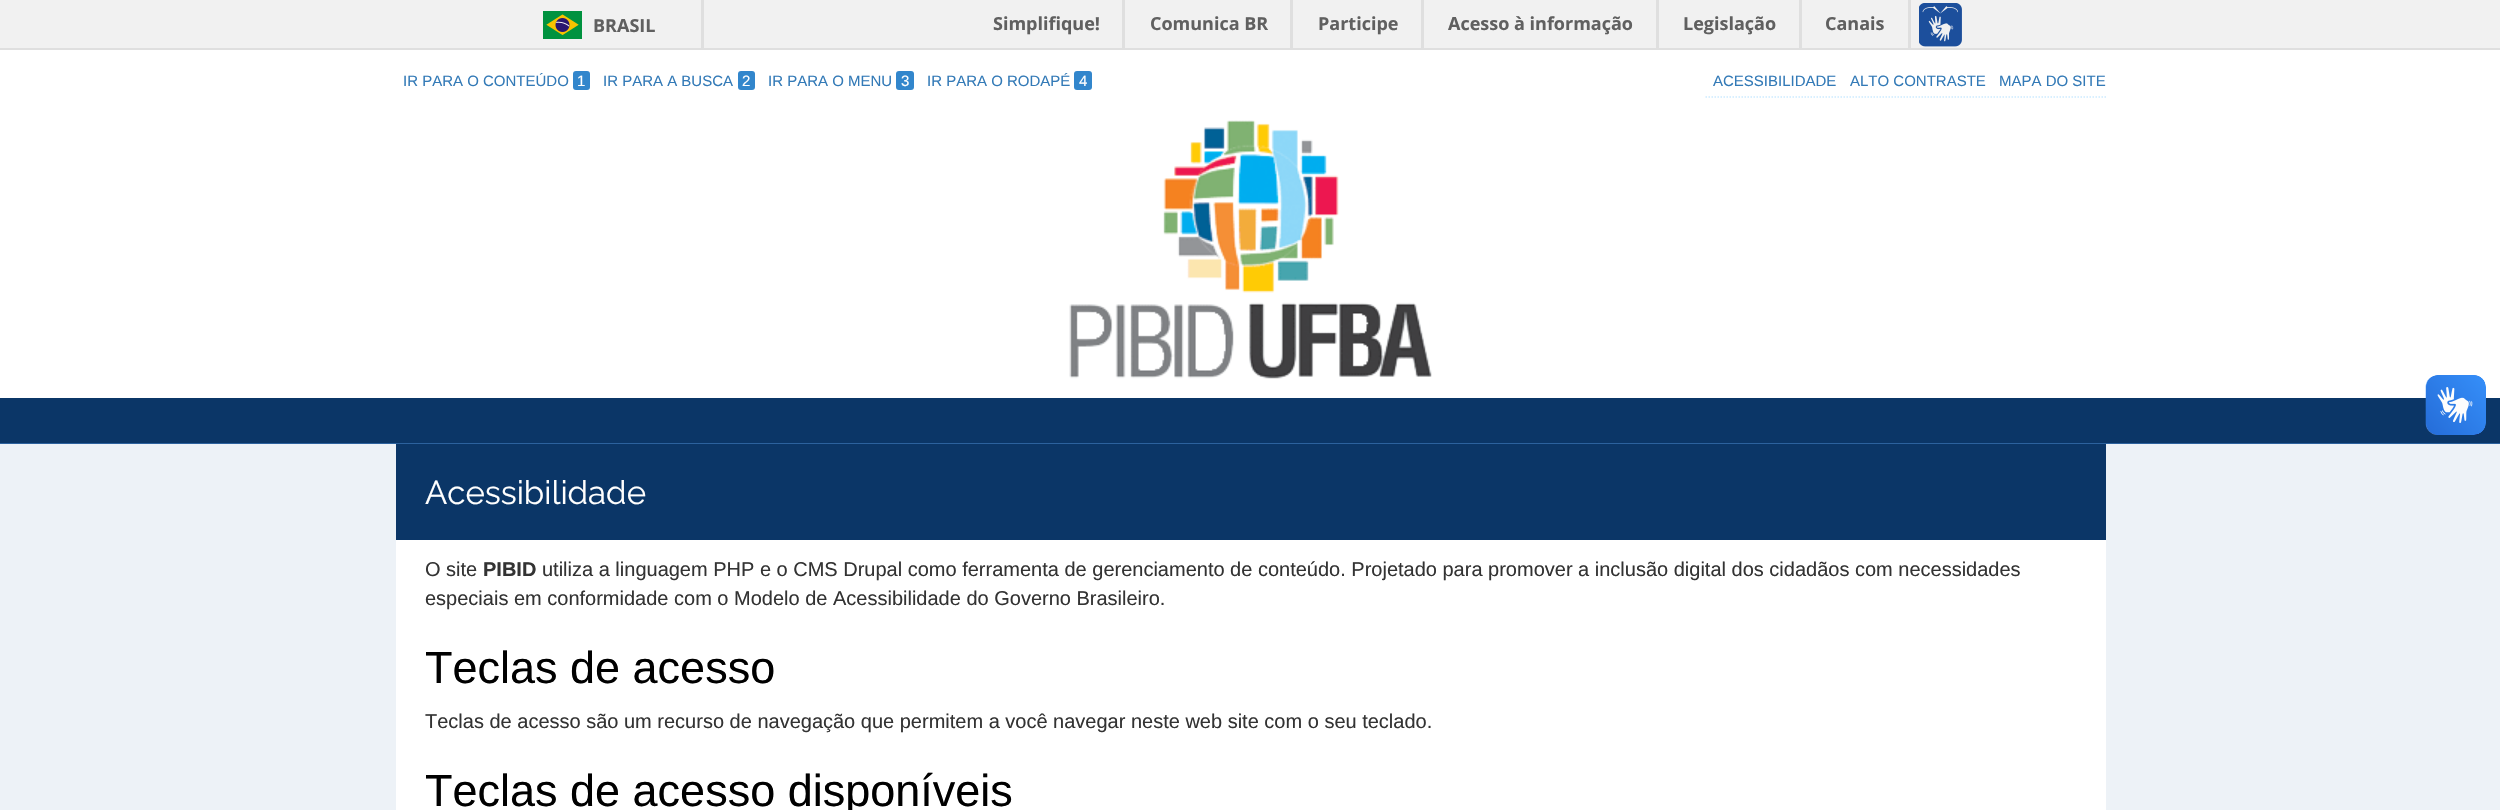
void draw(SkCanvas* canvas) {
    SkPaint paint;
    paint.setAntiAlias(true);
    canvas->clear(0xFFFFFFFF);
    paint.setColor(0xFFF1F1F1);
    canvas->drawRect(SkRect::MakeXYWH(0, 0, 2500, 48), paint);
    paint.setColor(0xFFDFDFDF);
    canvas->drawRect(SkRect::MakeXYWH(0, 48, 2500, 2), paint);
    canvas->drawRect(SkRect::MakeXYWH(701, 0, 3, 48), paint);
    canvas->drawImageRect(SkImages::DeferredFromEncodedData(SkData::MakeFromFileName("img1.png")), SkRect::MakeXYWH(543, 11, 39, 28), SkSamplingOptions());
    SkFont font1(fontMgr->matchFamilyStyle("Open Sans", SkFontStyle::Bold()), 18);
    font1.setSubpixel(true);
    paint.setColor(0xFF606060);
    canvas->drawString("BRASIL", 593, 32, font1, paint);
    paint.setColor(0xFFDFDFDF);
    canvas->drawRect(SkRect::MakeXYWH(1122, 0, 3, 48), paint);
    paint.setColor(0xFF606060);
    canvas->drawString("Simplifique!", 993, 30, font1, paint);
    paint.setColor(0xFFDFDFDF);
    canvas->drawRect(SkRect::MakeXYWH(1290, 0, 3, 48), paint);
    paint.setColor(0xFF606060);
    canvas->drawString("Comunica BR", 1150, 30, font1, paint);
    paint.setColor(0xFFDFDFDF);
    canvas->drawRect(SkRect::MakeXYWH(1421, 0, 3, 48), paint);
    paint.setColor(0xFF606060);
    canvas->drawString("Participe", 1318, 30, font1, paint);
    paint.setColor(0xFFDFDFDF);
    canvas->drawRect(SkRect::MakeXYWH(1656, 0, 3, 48), paint);
    paint.setColor(0xFF606060);
    canvas->drawString("Acesso à informação", 1448, 30, font1, paint);
    paint.setColor(0xFFDFDFDF);
    canvas->drawRect(SkRect::MakeXYWH(1799, 0, 3, 48), paint);
    paint.setColor(0xFF606060);
    canvas->drawString("Legislação", 1683, 30, font1, paint);
    paint.setColor(0xFFDFDFDF);
    canvas->drawRect(SkRect::MakeXYWH(1908, 0, 3, 48), paint);
    paint.setColor(0xFF606060);
    canvas->drawString("Canais", 1825, 30, font1, paint);
    canvas->drawImageRect(SkImages::DeferredFromEncodedData(SkData::MakeFromFileName("img2.png")), SkRect::MakeXYWH(1919, 3, 43, 44), SkSamplingOptions());
    SkFont font2(fontMgr->matchFamilyStyle("Liberation Sans", SkFontStyle::Normal()), 15);
    font2.setSubpixel(true);
    paint.setColor(0xFF337AB7);
    canvas->drawString("IR PARA O CONTEÚDO", 403, 86, font2, paint);
    paint.setColor(0xFF3286CC);
    canvas->drawRoundRect(SkRect::MakeXYWH(573, 71, 17, 19), 3, 3, paint);
    paint.setColor(0xFFFFFFFF);
    canvas->drawString("1", 577, 86, font2, paint);
    paint.setColor(0xFF337AB7);
    canvas->drawString("IR PARA A BUSCA", 603, 86, font2, paint);
    paint.setColor(0xFF3286CC);
    canvas->drawRoundRect(SkRect::MakeXYWH(738, 71, 17, 19), 3, 3, paint);
    paint.setColor(0xFFFFFFFF);
    canvas->drawString("2", 742, 86, font2, paint);
    paint.setColor(0xFF337AB7);
    canvas->drawString("IR PARA O MENU", 768, 86, font2, paint);
    paint.setColor(0xFF3286CC);
    canvas->drawRoundRect(SkRect::MakeXYWH(896, 71, 18, 19), 3, 3, paint);
    paint.setColor(0xFFFFFFFF);
    canvas->drawString("3", 901, 86, font2, paint);
    paint.setColor(0xFF337AB7);
    canvas->drawString("IR PARA O RODAPÉ", 927, 86, font2, paint);
    paint.setColor(0xFF3286CC);
    canvas->drawRoundRect(SkRect::MakeXYWH(1074, 71, 18, 19), 3, 3, paint);
    paint.setColor(0xFFFFFFFF);
    canvas->drawString("4", 1079, 86, font2, paint);
    paint.setStyle(SkPaint::kStroke_Style);
    paint.setStrokeWidth(1.5f);
    paint.setColor(0xFFCDECFF);
    paint.setPathEffect(SkDashPathEffect::Make({{1.5f, 1.5f}}, 0));
    canvas->drawPath(SkPathBuilder().moveTo(1705.5f, 97).lineTo(2106, 97).detach(), paint);
    paint.setPathEffect(nullptr);
    paint.setStyle(SkPaint::kFill_Style);
    paint.setColor(0xFF337AB7);
    canvas->drawString("ACESSIBILIDADE", 1713, 86, font2, paint);
    canvas->drawString("ALTO CONTRASTE", 1850, 86, font2, paint);
    canvas->drawString("MAPA DO SITE", 1999, 86, font2, paint);
    canvas->drawImageRect(SkImages::DeferredFromEncodedData(SkData::MakeFromFileName("img3.png")), SkRect::MakeXYWH(1069, 120, 363, 259), SkSamplingOptions());
    paint.setColor(0xFF0B3667);
    canvas->drawRect(SkRect::MakeXYWH(0, 398, 2500, 45), paint);
    canvas->drawImageRect(SkImages::DeferredFromEncodedData(SkData::MakeFromFileName("img4.png")), SkRect::MakeXYWH(2425, 375, 61, 60), SkSamplingOptions());
    canvas->drawImageRect(SkImages::DeferredFromEncodedData(SkData::MakeFromFileName("img5.png")), SkRect::MakeXYWH(2426, 375, 60, 60), SkSamplingOptions());
    paint.setColor(0xFF2C629E);
    canvas->drawRect(SkRect::MakeXYWH(0, 443, 2500, 1), paint);
    paint.setColor(0xFFEDF2F7);
    canvas->drawRect(SkRect::MakeXYWH(0, 444, 2500, 366), paint);
    paint.setColor(0xFF0B3667);
    canvas->drawRect(SkRect::MakeXYWH(396, 444, 1710, 96), paint);
    SkFont font3(fontMgr->matchFamilyStyle("Raleway", SkFontStyle::Normal()), 33);
    font3.setSubpixel(true);
    paint.setColor(0xFFFFFFFF);
    canvas->drawString("Acessibilidade", 425, 504, font3, paint);
    canvas->drawRect(SkRect::MakeXYWH(396, 540, 1710, 270), paint);
    SkFont font4(fontMgr->matchFamilyStyle("Liberation Sans", SkFontStyle::Normal()), 20);
    font4.setSubpixel(true);
    paint.setColor(0xFF333333);
    canvas->drawString("O site", 425, 576, font4, paint);
    SkFont font5(fontMgr->matchFamilyStyle("Liberation Sans", SkFontStyle::Bold()), 20);
    font5.setSubpixel(true);
    canvas->drawString("PIBID", 483, 576, font5, paint);
    canvas->drawString("utiliza a linguagem PHP e o CMS Drupal como ferramenta de gerenciamento de conteúdo. Projetado para promover a inclusão digital dos cidadãos com necessidades", 542, 576, font4, paint);
    canvas->drawString("especiais em conformidade com o Modelo de Acessibilidade do Governo Brasileiro.", 425, 605, font4, paint);
    SkFont font6(fontMgr->matchFamilyStyle("Liberation Sans", SkFontStyle::Normal()), 45);
    font6.setSubpixel(true);
    paint.setColor(0xFF000000);
    canvas->drawString("Teclas de acesso", 425, 683, font6, paint);
    paint.setColor(0xFF333333);
    canvas->drawString("Teclas de acesso são um recurso de navegação que permitem a você navegar neste web site com o seu teclado.", 425, 728, font4, paint);
    paint.setColor(0xFF000000);
    canvas->drawString("Teclas de acesso disponíveis", 425, 806, font6, paint);
}
